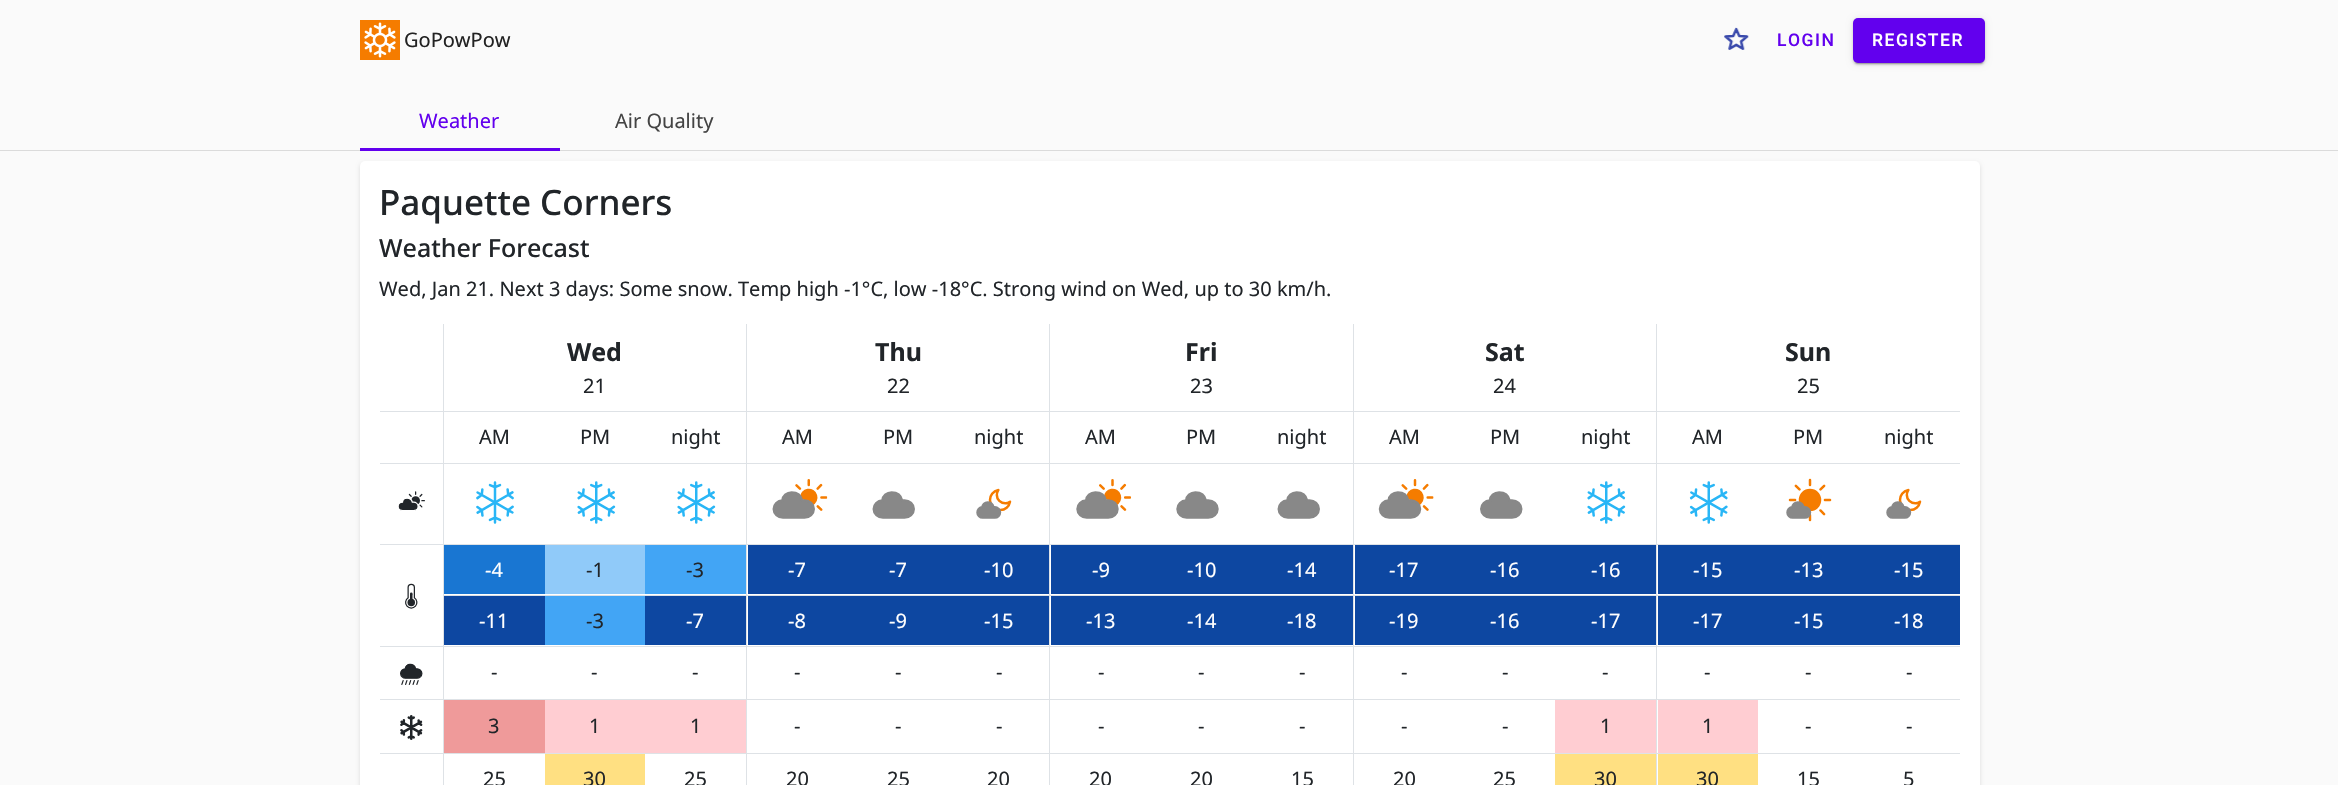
void draw(SkCanvas* canvas) {
    SkPaint paint;
    paint.setAntiAlias(true);
    auto spacedText = [&](const char* s, float x, float y, const SkFont& font, const SkPaint& ink, float letter, float word) {
        std::vector<SkGlyphID> glyphs(font.countText(s, strlen(s), SkTextEncoding::kUTF8));
        std::vector<float> xs(glyphs.size());
        font.textToGlyphs(s, strlen(s), SkTextEncoding::kUTF8, glyphs);
        font.getXPos(glyphs, xs, x);
        float extra = 0;
        for (size_t i = 0; i < glyphs.size(); i++) {
            xs[i] += extra;
            extra += letter + word * (glyphs[i] == font.unicharToGlyph(' '));
        }
        canvas->drawTextBlob(SkTextBlob::MakeFromPosHGlyphs(glyphs, xs, y, font), 0, 0, ink);
    };
    canvas->clear(0xFFFAFAFA);
    canvas->drawImageRect(SkImages::DeferredFromEncodedData(SkData::MakeFromFileName("img1.png")), SkRect::MakeXYWH(360, 20, 40, 40), SkSamplingOptions());
    SkFont font1(fontMgr->matchFamilyStyle("Noto Sans", SkFontStyle::Normal()), 20);
    font1.setSubpixel(true);
    paint.setColor(0xFF222222);
    canvas->drawString("GoPowPow", 404, 47, font1, paint);
    canvas->drawImageRect(SkImages::DeferredFromEncodedData(SkData::MakeFromFileName("img2.png")), SkRect::MakeXYWH(1724, 27, 25, 23), SkSamplingOptions());
    SkFont font2(fontMgr->matchFamilyStyle("Roboto", SkFontStyle(500, SkFontStyle::kNormal_Width, SkFontStyle::kUpright_Slant)), 17.5f);
    font2.setSubpixel(true);
    paint.setColor(0xFF6200EE);
    spacedText("LOGIN", 1777, 46, font2, paint, 1.5f, 0);
    paint.setColor(0x1F000000);
    paint.setMaskFilter(SkMaskFilter::MakeBlur(kNormal_SkBlurStyle, 3));
    canvas->drawRoundRect(SkRect::MakeXYWH(1853, 19, 132, 45), 5, 5, paint);
    paint.setMaskFilter(nullptr);
    paint.setColor(0x24000000);
    paint.setMaskFilter(SkMaskFilter::MakeBlur(kNormal_SkBlurStyle, 1));
    canvas->drawRoundRect(SkRect::MakeXYWH(1853, 20, 132, 45), 5, 5, paint);
    paint.setMaskFilter(nullptr);
    paint.setColor(0x33000000);
    paint.setMaskFilter(SkMaskFilter::MakeBlur(kNormal_SkBlurStyle, 0.5f));
    canvas->drawRoundRect(SkRect::MakeXYWH(1855, 24, 128, 40), 2.5f, 2.5f, paint);
    paint.setMaskFilter(nullptr);
    paint.setColor(0xFF6200EE);
    canvas->drawRoundRect(SkRect::MakeXYWH(1853, 18, 132, 45), 5, 5, paint);
    paint.setColor(0xFFFFFFFF);
    spacedText("REGISTER", 1872, 46, font2, paint, 1.5f, 0);
    paint.setColor(0xFFDBDBDB);
    canvas->drawRect(SkRect::MakeXYWH(0, 150, 2338, 1), paint);
    paint.setColor(0xFF6200EE);
    canvas->drawRect(SkRect::MakeXYWH(360, 148, 200, 3), paint);
    canvas->drawString("Weather", 419, 128, font1, paint);
    paint.setColor(0xFF444444);
    canvas->drawString("Air Quality", 615, 128, font1, paint);
    paint.setColor(0x1F000000);
    paint.setMaskFilter(SkMaskFilter::MakeBlur(kNormal_SkBlurStyle, 2));
    canvas->drawRoundRect(SkRect::MakeXYWH(360, 163, 1620, 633), 5, 5, paint);
    paint.setMaskFilter(nullptr);
    paint.setColor(0xFFFFFFFF);
    canvas->drawRoundRect(SkRect::MakeXYWH(360, 161, 1620, 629), 5, 5, paint);
    SkFont font3(fontMgr->matchFamilyStyle("Noto Sans", SkFontStyle(500, SkFontStyle::kNormal_Width, SkFontStyle::kUpright_Slant)), 35);
    font3.setSubpixel(true);
    paint.setColor(0xFF212529);
    canvas->drawString("Paquette Corners", 379, 215, font3, paint);
    SkFont font4(fontMgr->matchFamilyStyle("Noto Sans", SkFontStyle(500, SkFontStyle::kNormal_Width, SkFontStyle::kUpright_Slant)), 25);
    font4.setSubpixel(true);
    canvas->drawString("Weather Forecast", 379, 257, font4, paint);
    canvas->drawString("Wed, Jan 21. Next 3 days: Some snow. Temp high -1°C, low -18°C. Strong wind on Wed, up to 30 km/h.", 379, 296, font1, paint);
    paint.setColor(0xFFDEE2E6);
    canvas->drawRect(SkRect::MakeXYWH(1656, 753, 1, 32), paint);
    canvas->drawRect(SkRect::MakeXYWH(1656, 753, 304, 1), paint);
    canvas->drawRect(SkRect::MakeXYWH(1656, 699, 1, 55), paint);
    canvas->drawRect(SkRect::MakeXYWH(1656, 699, 304, 1), paint);
    canvas->drawRect(SkRect::MakeXYWH(1656, 646, 1, 54), paint);
    canvas->drawRect(SkRect::MakeXYWH(1656, 646, 304, 1), paint);
    canvas->drawRect(SkRect::MakeXYWH(1656, 595, 1, 53), paint);
    canvas->drawRect(SkRect::MakeXYWH(1656, 595, 304, 1), paint);
    canvas->drawRect(SkRect::MakeXYWH(1656, 544, 1, 52), paint);
    canvas->drawRect(SkRect::MakeXYWH(1656, 544, 304, 1), paint);
    canvas->drawRect(SkRect::MakeXYWH(1656, 463, 1, 82), paint);
    canvas->drawRect(SkRect::MakeXYWH(1656, 463, 304, 1), paint);
    canvas->drawRect(SkRect::MakeXYWH(1656, 411, 1, 53), paint);
    canvas->drawRect(SkRect::MakeXYWH(1656, 411, 304, 1), paint);
    canvas->drawRect(SkRect::MakeXYWH(1656, 324, 1, 89), paint);
    canvas->drawRect(SkRect::MakeXYWH(1353, 753, 1, 32), paint);
    canvas->drawRect(SkRect::MakeXYWH(1353, 753, 305, 1), paint);
    canvas->drawRect(SkRect::MakeXYWH(1353, 699, 1, 55), paint);
    canvas->drawRect(SkRect::MakeXYWH(1353, 699, 305, 1), paint);
    canvas->drawRect(SkRect::MakeXYWH(1353, 646, 1, 54), paint);
    canvas->drawRect(SkRect::MakeXYWH(1353, 646, 305, 1), paint);
    canvas->drawRect(SkRect::MakeXYWH(1353, 595, 1, 53), paint);
    canvas->drawRect(SkRect::MakeXYWH(1353, 595, 305, 1), paint);
    canvas->drawRect(SkRect::MakeXYWH(1353, 544, 1, 52), paint);
    canvas->drawRect(SkRect::MakeXYWH(1353, 544, 305, 1), paint);
    canvas->drawRect(SkRect::MakeXYWH(1353, 463, 1, 82), paint);
    canvas->drawRect(SkRect::MakeXYWH(1353, 463, 305, 1), paint);
    canvas->drawRect(SkRect::MakeXYWH(1353, 411, 1, 53), paint);
    canvas->drawRect(SkRect::MakeXYWH(1353, 411, 305, 1), paint);
    canvas->drawRect(SkRect::MakeXYWH(1353, 324, 1, 89), paint);
    canvas->drawRect(SkRect::MakeXYWH(1049, 753, 1, 32), paint);
    canvas->drawRect(SkRect::MakeXYWH(1049, 753, 305, 1), paint);
    canvas->drawRect(SkRect::MakeXYWH(1049, 699, 1, 55), paint);
    canvas->drawRect(SkRect::MakeXYWH(1049, 699, 305, 1), paint);
    canvas->drawRect(SkRect::MakeXYWH(1049, 646, 1, 54), paint);
    canvas->drawRect(SkRect::MakeXYWH(1049, 646, 305, 1), paint);
    canvas->drawRect(SkRect::MakeXYWH(1049, 595, 1, 53), paint);
    canvas->drawRect(SkRect::MakeXYWH(1049, 595, 305, 1), paint);
    canvas->drawRect(SkRect::MakeXYWH(1049, 544, 1, 52), paint);
    canvas->drawRect(SkRect::MakeXYWH(1049, 544, 305, 1), paint);
    canvas->drawRect(SkRect::MakeXYWH(1049, 463, 1, 82), paint);
    canvas->drawRect(SkRect::MakeXYWH(1049, 463, 305, 1), paint);
    canvas->drawRect(SkRect::MakeXYWH(1049, 411, 1, 53), paint);
    canvas->drawRect(SkRect::MakeXYWH(1049, 411, 305, 1), paint);
    canvas->drawRect(SkRect::MakeXYWH(1049, 324, 1, 89), paint);
    canvas->drawRect(SkRect::MakeXYWH(746, 753, 1, 32), paint);
    canvas->drawRect(SkRect::MakeXYWH(746, 753, 304, 1), paint);
    canvas->drawRect(SkRect::MakeXYWH(746, 699, 1, 55), paint);
    canvas->drawRect(SkRect::MakeXYWH(746, 699, 304, 1), paint);
    canvas->drawRect(SkRect::MakeXYWH(746, 646, 1, 54), paint);
    canvas->drawRect(SkRect::MakeXYWH(746, 646, 304, 1), paint);
    canvas->drawRect(SkRect::MakeXYWH(746, 595, 1, 53), paint);
    canvas->drawRect(SkRect::MakeXYWH(746, 595, 304, 1), paint);
    canvas->drawRect(SkRect::MakeXYWH(746, 544, 1, 52), paint);
    canvas->drawRect(SkRect::MakeXYWH(746, 544, 304, 1), paint);
    canvas->drawRect(SkRect::MakeXYWH(746, 463, 1, 82), paint);
    canvas->drawRect(SkRect::MakeXYWH(746, 463, 304, 1), paint);
    canvas->drawRect(SkRect::MakeXYWH(746, 411, 1, 53), paint);
    canvas->drawRect(SkRect::MakeXYWH(746, 411, 304, 1), paint);
    canvas->drawRect(SkRect::MakeXYWH(746, 324, 1, 89), paint);
    canvas->drawRect(SkRect::MakeXYWH(443, 753, 1, 32), paint);
    canvas->drawRect(SkRect::MakeXYWH(443, 753, 305, 1), paint);
    canvas->drawRect(SkRect::MakeXYWH(443, 699, 1, 55), paint);
    canvas->drawRect(SkRect::MakeXYWH(443, 699, 305, 1), paint);
    canvas->drawRect(SkRect::MakeXYWH(443, 646, 1, 54), paint);
    canvas->drawRect(SkRect::MakeXYWH(443, 646, 305, 1), paint);
    canvas->drawRect(SkRect::MakeXYWH(443, 595, 1, 53), paint);
    canvas->drawRect(SkRect::MakeXYWH(443, 595, 305, 1), paint);
    canvas->drawRect(SkRect::MakeXYWH(443, 544, 1, 52), paint);
    canvas->drawRect(SkRect::MakeXYWH(443, 544, 305, 1), paint);
    canvas->drawRect(SkRect::MakeXYWH(443, 463, 1, 82), paint);
    canvas->drawRect(SkRect::MakeXYWH(443, 463, 305, 1), paint);
    canvas->drawRect(SkRect::MakeXYWH(443, 411, 1, 53), paint);
    canvas->drawRect(SkRect::MakeXYWH(443, 411, 305, 1), paint);
    canvas->drawRect(SkRect::MakeXYWH(443, 324, 1, 89), paint);
    SkFont font5(fontMgr->matchFamilyStyle("Noto Sans", SkFontStyle::Bold()), 25);
    font5.setSubpixel(true);
    paint.setColor(0xFF212529);
    canvas->drawString("Wed", 567, 361, font5, paint);
    canvas->drawString("21", 583, 393, font1, paint);
    canvas->drawString("Thu", 875, 361, font5, paint);
    canvas->drawString("22", 887, 393, font1, paint);
    canvas->drawString("Fri", 1185, 361, font5, paint);
    canvas->drawString("23", 1190, 393, font1, paint);
    canvas->drawString("Sat", 1485, 361, font5, paint);
    canvas->drawString("24", 1493, 393, font1, paint);
    canvas->drawString("Sun", 1785, 361, font5, paint);
    canvas->drawString("25", 1797, 393, font1, paint);
    paint.setColor(0xFFDEE2E6);
    canvas->drawRect(SkRect::MakeXYWH(380, 411, 64, 1), paint);
    paint.setColor(0xFF212529);
    canvas->drawString("AM", 479, 444, font1, paint);
    canvas->drawString("PM", 580, 444, font1, paint);
    canvas->drawString("night", 671, 444, font1, paint);
    canvas->drawString("AM", 782, 444, font1, paint);
    canvas->drawString("PM", 883, 444, font1, paint);
    canvas->drawString("night", 974, 444, font1, paint);
    canvas->drawString("AM", 1085, 444, font1, paint);
    canvas->drawString("PM", 1186, 444, font1, paint);
    canvas->drawString("night", 1277, 444, font1, paint);
    canvas->drawString("AM", 1389, 444, font1, paint);
    canvas->drawString("PM", 1490, 444, font1, paint);
    canvas->drawString("night", 1581, 444, font1, paint);
    canvas->drawString("AM", 1692, 444, font1, paint);
    canvas->drawString("PM", 1793, 444, font1, paint);
    canvas->drawString("night", 1884, 444, font1, paint);
    paint.setColor(0xFFDEE2E6);
    canvas->drawRect(SkRect::MakeXYWH(380, 463, 64, 1), paint);
    canvas->drawImageRect(SkImages::DeferredFromEncodedData(SkData::MakeFromFileName("img3.png")), SkRect::MakeXYWH(476, 481, 38, 43), SkSamplingOptions());
    canvas->drawImageRect(SkImages::DeferredFromEncodedData(SkData::MakeFromFileName("img4.png")), SkRect::MakeXYWH(772, 479, 56, 40), SkSamplingOptions());
    canvas->drawImageRect(SkImages::DeferredFromEncodedData(SkData::MakeFromFileName("img5.png")), SkRect::MakeXYWH(1076, 479, 55, 40), SkSamplingOptions());
    canvas->drawImageRect(SkImages::DeferredFromEncodedData(SkData::MakeFromFileName("img6.png")), SkRect::MakeXYWH(1378, 479, 56, 40), SkSamplingOptions());
    canvas->drawImageRect(SkImages::DeferredFromEncodedData(SkData::MakeFromFileName("img7.png")), SkRect::MakeXYWH(1689, 481, 39, 43), SkSamplingOptions());
    canvas->drawImageRect(SkImages::DeferredFromEncodedData(SkData::MakeFromFileName("img8.png")), SkRect::MakeXYWH(1786, 478, 46, 44), SkSamplingOptions());
    canvas->drawImageRect(SkImages::DeferredFromEncodedData(SkData::MakeFromFileName("img9.png")), SkRect::MakeXYWH(677, 481, 39, 43), SkSamplingOptions());
    canvas->drawRect(SkRect::MakeXYWH(380, 544, 64, 1), paint);
    canvas->drawImageRect(SkImages::DeferredFromEncodedData(SkData::MakeFromFileName("img10.png")), SkRect::MakeXYWH(398, 491, 27, 20), SkSamplingOptions());
    canvas->drawImageRect(SkImages::DeferredFromEncodedData(SkData::MakeFromFileName("img9.png")), SkRect::MakeXYWH(577, 481, 39, 43), SkSamplingOptions());
    canvas->drawImageRect(SkImages::DeferredFromEncodedData(SkData::MakeFromFileName("img11.png")), SkRect::MakeXYWH(976, 488, 36, 31), SkSamplingOptions());
    canvas->drawImageRect(SkImages::DeferredFromEncodedData(SkData::MakeFromFileName("img9.png")), SkRect::MakeXYWH(1587, 481, 39, 43), SkSamplingOptions());
    canvas->drawImageRect(SkImages::DeferredFromEncodedData(SkData::MakeFromFileName("img11.png")), SkRect::MakeXYWH(1886, 488, 36, 31), SkSamplingOptions());
    canvas->drawImageRect(SkImages::DeferredFromEncodedData(SkData::MakeFromFileName("img12.png")), SkRect::MakeXYWH(872, 491, 43, 28), SkSamplingOptions());
    canvas->drawImageRect(SkImages::DeferredFromEncodedData(SkData::MakeFromFileName("img12.png")), SkRect::MakeXYWH(1277, 491, 43, 28), SkSamplingOptions());
    canvas->drawImageRect(SkImages::DeferredFromEncodedData(SkData::MakeFromFileName("img13.png")), SkRect::MakeXYWH(1176, 491, 43, 28), SkSamplingOptions());
    canvas->drawImageRect(SkImages::DeferredFromEncodedData(SkData::MakeFromFileName("img14.png")), SkRect::MakeXYWH(1480, 491, 43, 28), SkSamplingOptions());
    paint.setColor(0xFF1976D2);
    canvas->drawRect(SkRect::MakeXYWH(444, 545, 101, 49), paint);
    paint.setColor(0xFFFFFFFF);
    canvas->drawString("-4", 485, 577, font1, paint);
    paint.setColor(0xFF90CAF9);
    canvas->drawRect(SkRect::MakeXYWH(545, 545, 100, 49), paint);
    paint.setColor(0xFF212529);
    canvas->drawString("-1", 586, 577, font1, paint);
    paint.setColor(0xFF42A5F5);
    canvas->drawRect(SkRect::MakeXYWH(645, 545, 101, 49), paint);
    paint.setColor(0xFF212529);
    canvas->drawString("-3", 686, 577, font1, paint);
    paint.setColor(0xFF0D47A1);
    canvas->drawRect(SkRect::MakeXYWH(748, 545, 301, 49), paint);
    paint.setColor(0xFFFFFFFF);
    canvas->drawString("-7", 788, 577, font1, paint);
    canvas->drawString("-7", 889, 577, font1, paint);
    canvas->drawString("-10", 984, 577, font1, paint);
    paint.setColor(0xFF0D47A1);
    canvas->drawRect(SkRect::MakeXYWH(1051, 545, 302, 49), paint);
    paint.setColor(0xFFFFFFFF);
    canvas->drawString("-9", 1092, 577, font1, paint);
    canvas->drawString("-10", 1187, 577, font1, paint);
    canvas->drawString("-14", 1287, 577, font1, paint);
    paint.setColor(0xFF0D47A1);
    canvas->drawRect(SkRect::MakeXYWH(1355, 545, 301, 49), paint);
    paint.setColor(0xFFFFFFFF);
    canvas->drawString("-17", 1389, 577, font1, paint);
    canvas->drawString("-16", 1490, 577, font1, paint);
    canvas->drawString("-16", 1591, 577, font1, paint);
    paint.setColor(0xFF0D47A1);
    canvas->drawRect(SkRect::MakeXYWH(1658, 545, 302, 49), paint);
    paint.setColor(0xFFFFFFFF);
    canvas->drawString("-15", 1693, 577, font1, paint);
    canvas->drawString("-13", 1794, 577, font1, paint);
    canvas->drawString("-15", 1894, 577, font1, paint);
    paint.setColor(0xFFDEE2E6);
    canvas->drawRect(SkRect::MakeXYWH(380, 646, 64, 1), paint);
    canvas->drawImageRect(SkImages::DeferredFromEncodedData(SkData::MakeFromFileName("img15.png")), SkRect::MakeXYWH(405, 583, 13, 26), SkSamplingOptions());
    paint.setColor(0xFF0D47A1);
    canvas->drawRect(SkRect::MakeXYWH(444, 596, 101, 49), paint);
    paint.setColor(0xFFFFFFFF);
    canvas->drawString("-11", 479, 628, font1, paint);
    paint.setColor(0xFF42A5F5);
    canvas->drawRect(SkRect::MakeXYWH(545, 596, 100, 49), paint);
    paint.setColor(0xFF212529);
    canvas->drawString("-3", 586, 628, font1, paint);
    paint.setColor(0xFF0D47A1);
    canvas->drawRect(SkRect::MakeXYWH(645, 596, 101, 49), paint);
    paint.setColor(0xFFFFFFFF);
    canvas->drawString("-7", 686, 628, font1, paint);
    paint.setColor(0xFF0D47A1);
    canvas->drawRect(SkRect::MakeXYWH(748, 596, 301, 49), paint);
    paint.setColor(0xFFFFFFFF);
    canvas->drawString("-8", 788, 628, font1, paint);
    canvas->drawString("-9", 889, 628, font1, paint);
    canvas->drawString("-15", 984, 628, font1, paint);
    paint.setColor(0xFF0D47A1);
    canvas->drawRect(SkRect::MakeXYWH(1051, 596, 302, 49), paint);
    paint.setColor(0xFFFFFFFF);
    canvas->drawString("-13", 1086, 628, font1, paint);
    canvas->drawString("-14", 1187, 628, font1, paint);
    canvas->drawString("-18", 1287, 628, font1, paint);
    paint.setColor(0xFF0D47A1);
    canvas->drawRect(SkRect::MakeXYWH(1355, 596, 301, 49), paint);
    paint.setColor(0xFFFFFFFF);
    canvas->drawString("-19", 1389, 628, font1, paint);
    canvas->drawString("-16", 1490, 628, font1, paint);
    canvas->drawString("-17", 1591, 628, font1, paint);
    paint.setColor(0xFF0D47A1);
    canvas->drawRect(SkRect::MakeXYWH(1658, 596, 302, 49), paint);
    paint.setColor(0xFFFFFFFF);
    canvas->drawString("-17", 1693, 628, font1, paint);
    canvas->drawString("-15", 1794, 628, font1, paint);
    canvas->drawString("-18", 1894, 628, font1, paint);
    paint.setColor(0xFFDEE2E6);
    canvas->drawRect(SkRect::MakeXYWH(380, 699, 64, 1), paint);
    canvas->drawImageRect(SkImages::DeferredFromEncodedData(SkData::MakeFromFileName("img16.png")), SkRect::MakeXYWH(400, 663, 23, 22), SkSamplingOptions());
    paint.setColor(0xFF212529);
    canvas->drawString("-", 491, 679, font1, paint);
    canvas->drawString("-", 591, 679, font1, paint);
    canvas->drawString("-", 692, 679, font1, paint);
    canvas->drawString("-", 794, 679, font1, paint);
    canvas->drawString("-", 895, 679, font1, paint);
    canvas->drawString("-", 996, 679, font1, paint);
    canvas->drawString("-", 1098, 679, font1, paint);
    canvas->drawString("-", 1198, 679, font1, paint);
    canvas->drawString("-", 1299, 679, font1, paint);
    canvas->drawString("-", 1401, 679, font1, paint);
    canvas->drawString("-", 1502, 679, font1, paint);
    canvas->drawString("-", 1602, 679, font1, paint);
    canvas->drawString("-", 1704, 679, font1, paint);
    canvas->drawString("-", 1805, 679, font1, paint);
    canvas->drawString("-", 1906, 679, font1, paint);
    paint.setColor(0xFFDEE2E6);
    canvas->drawRect(SkRect::MakeXYWH(380, 753, 64, 1), paint);
    canvas->drawImageRect(SkImages::DeferredFromEncodedData(SkData::MakeFromFileName("img17.png")), SkRect::MakeXYWH(400, 715, 23, 25), SkSamplingOptions());
    paint.setColor(0xFFEF9A9A);
    canvas->drawRect(SkRect::MakeXYWH(444, 700, 101, 53), paint);
    paint.setColor(0xFF212529);
    canvas->drawString("3", 488, 733, font1, paint);
    paint.setColor(0xFFFFCDD2);
    canvas->drawRect(SkRect::MakeXYWH(545, 700, 201, 53), paint);
    paint.setColor(0xFF212529);
    canvas->drawString("1", 589, 733, font1, paint);
    canvas->drawString("1", 690, 733, font1, paint);
    canvas->drawString("-", 794, 733, font1, paint);
    canvas->drawString("-", 895, 733, font1, paint);
    canvas->drawString("-", 996, 733, font1, paint);
    canvas->drawString("-", 1098, 733, font1, paint);
    canvas->drawString("-", 1198, 733, font1, paint);
    canvas->drawString("-", 1299, 733, font1, paint);
    canvas->drawString("-", 1401, 733, font1, paint);
    canvas->drawString("-", 1502, 733, font1, paint);
    paint.setColor(0xFFFFCDD2);
    canvas->drawRect(SkRect::MakeXYWH(1555, 700, 101, 53), paint);
    paint.setColor(0xFF212529);
    canvas->drawString("1", 1600, 733, font1, paint);
    paint.setColor(0xFFFFCDD2);
    canvas->drawRect(SkRect::MakeXYWH(1658, 700, 100, 53), paint);
    paint.setColor(0xFF212529);
    canvas->drawString("1", 1702, 733, font1, paint);
    canvas->drawString("-", 1805, 733, font1, paint);
    canvas->drawString("-", 1906, 733, font1, paint);
    canvas->drawString("25", 483, 786, font1, paint);
    paint.setColor(0xFFFFE082);
    canvas->drawRect(SkRect::MakeXYWH(545, 754, 100, 31), paint);
    paint.setColor(0xFF212529);
    canvas->drawString("30", 583, 786, font1, paint);
    canvas->drawString("25", 684, 786, font1, paint);
    canvas->drawString("20", 786, 786, font1, paint);
    canvas->drawString("25", 887, 786, font1, paint);
    canvas->drawString("20", 987, 786, font1, paint);
    canvas->drawString("20", 1089, 786, font1, paint);
    canvas->drawString("20", 1190, 786, font1, paint);
    canvas->drawString("15", 1291, 786, font1, paint);
    canvas->drawString("20", 1393, 786, font1, paint);
    canvas->drawString("25", 1493, 786, font1, paint);
    paint.setColor(0xFFFFE082);
    canvas->drawRect(SkRect::MakeXYWH(1555, 754, 101, 31), paint);
    paint.setColor(0xFF212529);
    canvas->drawString("30", 1594, 786, font1, paint);
    paint.setColor(0xFFFFE082);
    canvas->drawRect(SkRect::MakeXYWH(1658, 754, 100, 31), paint);
    paint.setColor(0xFF212529);
    canvas->drawString("30", 1696, 786, font1, paint);
    canvas->drawString("15", 1797, 786, font1, paint);
    canvas->drawString("5", 1903, 786, font1, paint);
}
